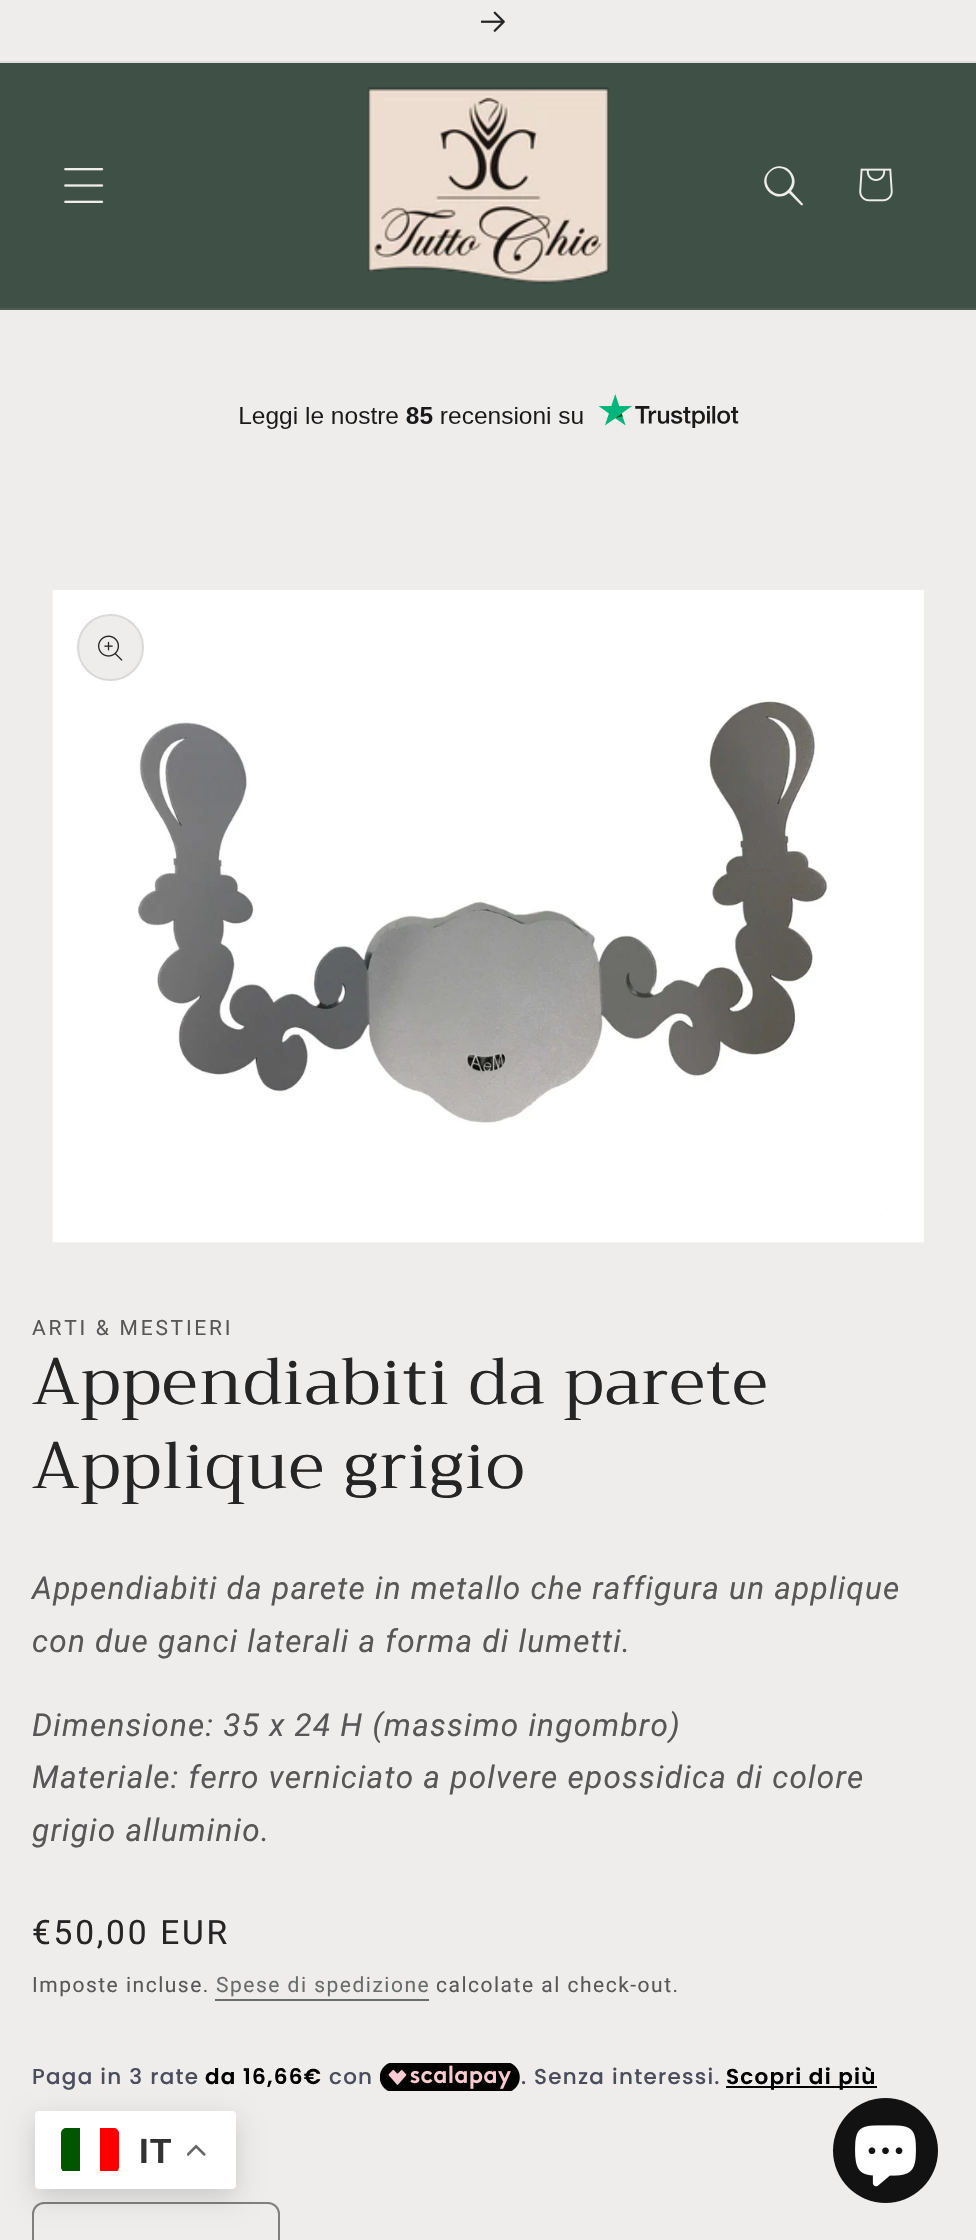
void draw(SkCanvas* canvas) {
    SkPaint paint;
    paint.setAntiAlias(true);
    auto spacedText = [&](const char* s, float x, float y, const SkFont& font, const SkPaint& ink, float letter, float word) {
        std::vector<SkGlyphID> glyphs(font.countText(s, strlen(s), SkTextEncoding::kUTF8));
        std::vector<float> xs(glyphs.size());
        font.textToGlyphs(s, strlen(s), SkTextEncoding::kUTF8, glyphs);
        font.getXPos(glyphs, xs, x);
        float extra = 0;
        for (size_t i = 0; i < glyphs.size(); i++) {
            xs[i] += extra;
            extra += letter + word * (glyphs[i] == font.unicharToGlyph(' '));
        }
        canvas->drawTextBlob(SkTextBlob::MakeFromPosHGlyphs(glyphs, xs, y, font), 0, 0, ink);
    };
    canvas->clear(0xFFEFECEC);
    paint.setColor(0xFFDFDCDC);
    canvas->drawRect(SkRect::MakeXYWH(0, 61, 976, 2), paint);
    canvas->drawImageRect(SkImages::DeferredFromEncodedData(SkData::MakeFromFileName("img1.png")), SkRect::MakeXYWH(481, 11, 24, 21), SkSamplingOptions());
    paint.setColor(0xFF3F5147);
    canvas->drawRect(SkRect::MakeXYWH(0, 63, 976, 245), paint);
    paint.setColor(0xFF4D5D54);
    canvas->drawRect(SkRect::MakeXYWH(0, 308, 976, 2), paint);
    canvas->drawImageRect(SkImages::DeferredFromEncodedData(SkData::MakeFromFileName("img2.png")), SkRect::MakeXYWH(64, 168, 40, 35), SkSamplingOptions());
    canvas->drawImageRect(SkImages::DeferredFromEncodedData(SkData::MakeFromFileName("img3.png")), SkRect::MakeXYWH(367, 87, 243, 197), SkSamplingOptions());
    paint.setColor(0xFFEFECEC);
    canvas->drawPath(SkPathBuilder(SkPathFillType::kEvenOdd).moveTo(788, 190).cubicTo(777, 202, 759, 184, 770, 172).cubicTo(782, 160, 800, 178, 788, 190).moveTo(789, 193).cubicTo(775, 205, 755, 184, 769, 171).cubicTo(783, 157, 803, 177, 791, 191).lineTo(803, 204).cubicTo(803, 205, 802, 206, 801, 205).close().detach(), paint);
    canvas->drawImageRect(SkImages::DeferredFromEncodedData(SkData::MakeFromFileName("img4.png")), SkRect::MakeXYWH(859, 168, 34, 34), SkSamplingOptions());
    canvas->drawImageRect(SkImages::DeferredFromEncodedData(SkData::MakeFromFileName("img5.png")), SkRect::MakeXYWH(240, 394, 499, 35), SkSamplingOptions());
    canvas->drawImageRect(SkImages::DeferredFromEncodedData(SkData::MakeFromFileName("img6.png")), SkRect::MakeXYWH(52, 590, 872, 653), SkSamplingOptions());
    canvas->drawCircle(110.5f, 647.5f, 33.5f, paint);
    paint.setStyle(SkPaint::kStroke_Style);
    paint.setStrokeWidth(2);
    paint.setColor(0x1A252525);
    canvas->drawCircle(110.5f, 647.5f, 32.5f, paint);
    canvas->drawImageRect(SkImages::DeferredFromEncodedData(SkData::MakeFromFileName("img7.png")), SkRect::MakeXYWH(98, 635, 25, 26), SkSamplingOptions());
    SkFont font1(fontMgr->matchFamilyStyle("Roboto", SkFontStyle::Normal()), 21);
    font1.setSubpixel(true);
    paint.setStyle(SkPaint::kFill_Style);
    paint.setColor(0xFF585757);
    spacedText("ARTI & MESTIERI", 32, 1335, font1, paint, 2.75f, 0);
    SkFont font2(fontMgr->matchFamilyStyle("Trirong", SkFontStyle::Normal()), 65.6f);
    font2.setSubpixel(true);
    paint.setColor(0xFF252525);
    spacedText("Appendiabiti da parete", 32, 1404, font2, paint, 1.3f, 0);
    spacedText("Applique grigio", 32, 1488, font2, paint, 1.3f, 0);
    SkFont font3(fontMgr->matchFamilyStyle("Roboto", SkFontStyle::Italic()), 31.5f);
    font3.setSubpixel(true);
    paint.setColor(0xFF585757);
    spacedText("Appendiabiti da parete in metallo che raffigura un applique", 32, 1599, font3, paint, 1.25f, 0);
    spacedText("con due ganci laterali a forma di lumetti.", 32, 1652, font3, paint, 1.25f, 0);
    spacedText("Dimensione: 35 x 24 H (massimo ingombro)", 32, 1736, font3, paint, 1.25f, 0);
    spacedText("Materiale: ferro verniciato a polvere epossidica di colore", 32, 1788, font3, paint, 1.25f, 0);
    spacedText("grigio alluminio.", 32, 1841, font3, paint, 1.25f, 0);
    SkFont font4(fontMgr->matchFamilyStyle("Roboto", SkFontStyle::Normal()), 33.5f);
    font4.setSubpixel(true);
    paint.setColor(0xFF252525);
    spacedText("€50,00 EUR", 32, 1944, font4, paint, 2.75f, 0);
    paint.setColor(0xFF585757);
    spacedText("Imposte incluse.", 32, 1992, font1, paint, 1.5f, 0);
    paint.setColor(0xFF686D6C);
    spacedText("Spese di spedizione", 216, 1992, font1, paint, 1.5f, 0);
    canvas->drawRect(SkRect::MakeXYWH(215, 1999, 214, 2), paint);
    paint.setColor(0xFF585757);
    spacedText("calcolate al check-out.", 436, 1992, font1, paint, 1.5f, 0);
    SkFont font5(fontMgr->matchFamilyStyle("Poppins", SkFontStyle(500, SkFontStyle::kNormal_Width, SkFontStyle::kUpright_Slant)), 21.5f);
    font5.setSubpixel(true);
    paint.setColor(0xFF4A4D5A);
    spacedText("Paga in 3 rate", 32, 2084, font5, paint, 1.25f, 0);
    SkFont font6(fontMgr->matchFamilyStyle("Poppins", SkFontStyle(600, SkFontStyle::kNormal_Width, SkFontStyle::kUpright_Slant)), 21.5f);
    font6.setSubpixel(true);
    paint.setColor(0xFF000000);
    spacedText("da 16,66€", 205, 2084, font6, paint, 1.25f, 0);
    paint.setColor(0xFF4A4D5A);
    spacedText("con", 329, 2084, font5, paint, 1.25f, 0);
    canvas->drawImageRect(SkImages::DeferredFromEncodedData(SkData::MakeFromFileName("img8.png")), SkRect::MakeXYWH(380, 2063, 140, 28), SkSamplingOptions());
    spacedText(".", 521, 2084, font5, paint, 1.25f, 0);
    spacedText("Senza interessi.", 534, 2084, font5, paint, 1.25f, 0);
    paint.setColor(0xFF000000);
    canvas->drawRect(SkRect::MakeXYWH(726, 2086, 151, 2), paint);
    spacedText("Scopri di più", 726, 2084, font6, paint, 1.25f, 0);
    paint.setStyle(SkPaint::kStroke_Style);
    paint.setColor(0xFF807F7F);
    canvas->drawRoundRect(SkRect::MakeXYWH(33, 2203, 246, 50), 11, 11, paint);
    paint.setStyle(SkPaint::kFill_Style);
    paint.setColor(0x26000000);
    paint.setMaskFilter(SkMaskFilter::MakeBlur(kNormal_SkBlurStyle, 13));
    canvas->drawRoundRect(SkRect::MakeXYWH(35, 2119, 201, 79), 4, 4, paint);
    paint.setMaskFilter(nullptr);
    paint.setColor(0xFFFFFFFF);
    canvas->drawRoundRect(SkRect::MakeXYWH(35, 2111, 201, 78), 4, 4, paint);
    canvas->save();
    canvas->clipPath(SkPathBuilder().moveTo(66, 2128).lineTo(114, 2128).cubicTo(117, 2128, 119, 2130, 119, 2133).lineTo(119, 2167).cubicTo(119, 2170, 117, 2172, 114, 2172).lineTo(66, 2172).cubicTo(63, 2172, 61, 2170, 61, 2167).lineTo(61, 2133).cubicTo(61, 2130, 63, 2128, 66, 2128).close().detach(), true);
    paint.setColor(0xFF005700);
    canvas->drawPath(SkPathBuilder().moveTo(66, 2128).lineTo(80, 2128).lineTo(80, 2171).lineTo(61, 2171).lineTo(61, 2133).cubicTo(61, 2130, 63, 2128, 66, 2128).close().detach(), paint);
    paint.setColor(0xFFFC0000);
    canvas->drawPath(SkPathBuilder().moveTo(100, 2128).lineTo(114, 2128).cubicTo(117, 2128, 119, 2130, 119, 2133).lineTo(119, 2171).lineTo(100, 2171).close().detach(), paint);
    canvas->restore();
    SkFont font7(fontMgr->matchFamilyStyle("Liberation Sans", SkFontStyle::Bold()), 35);
    font7.setSubpixel(true);
    paint.setColor(0xFF333333);
    spacedText("IT", 139, 2163, font7, paint, 1.25f, 0);
    canvas->drawImageRect(SkImages::DeferredFromEncodedData(SkData::MakeFromFileName("img9.png")), SkRect::MakeXYWH(187, 2144, 19, 12), SkSamplingOptions());
    paint.setColor(0xFF121213);
    canvas->drawCircle(885.5f, 2150.5f, 52.5f, paint);
    canvas->drawImageRect(SkImages::DeferredFromEncodedData(SkData::MakeFromFileName("img10.png")), SkRect::MakeXYWH(855, 2125, 61, 62), SkSamplingOptions());
}
